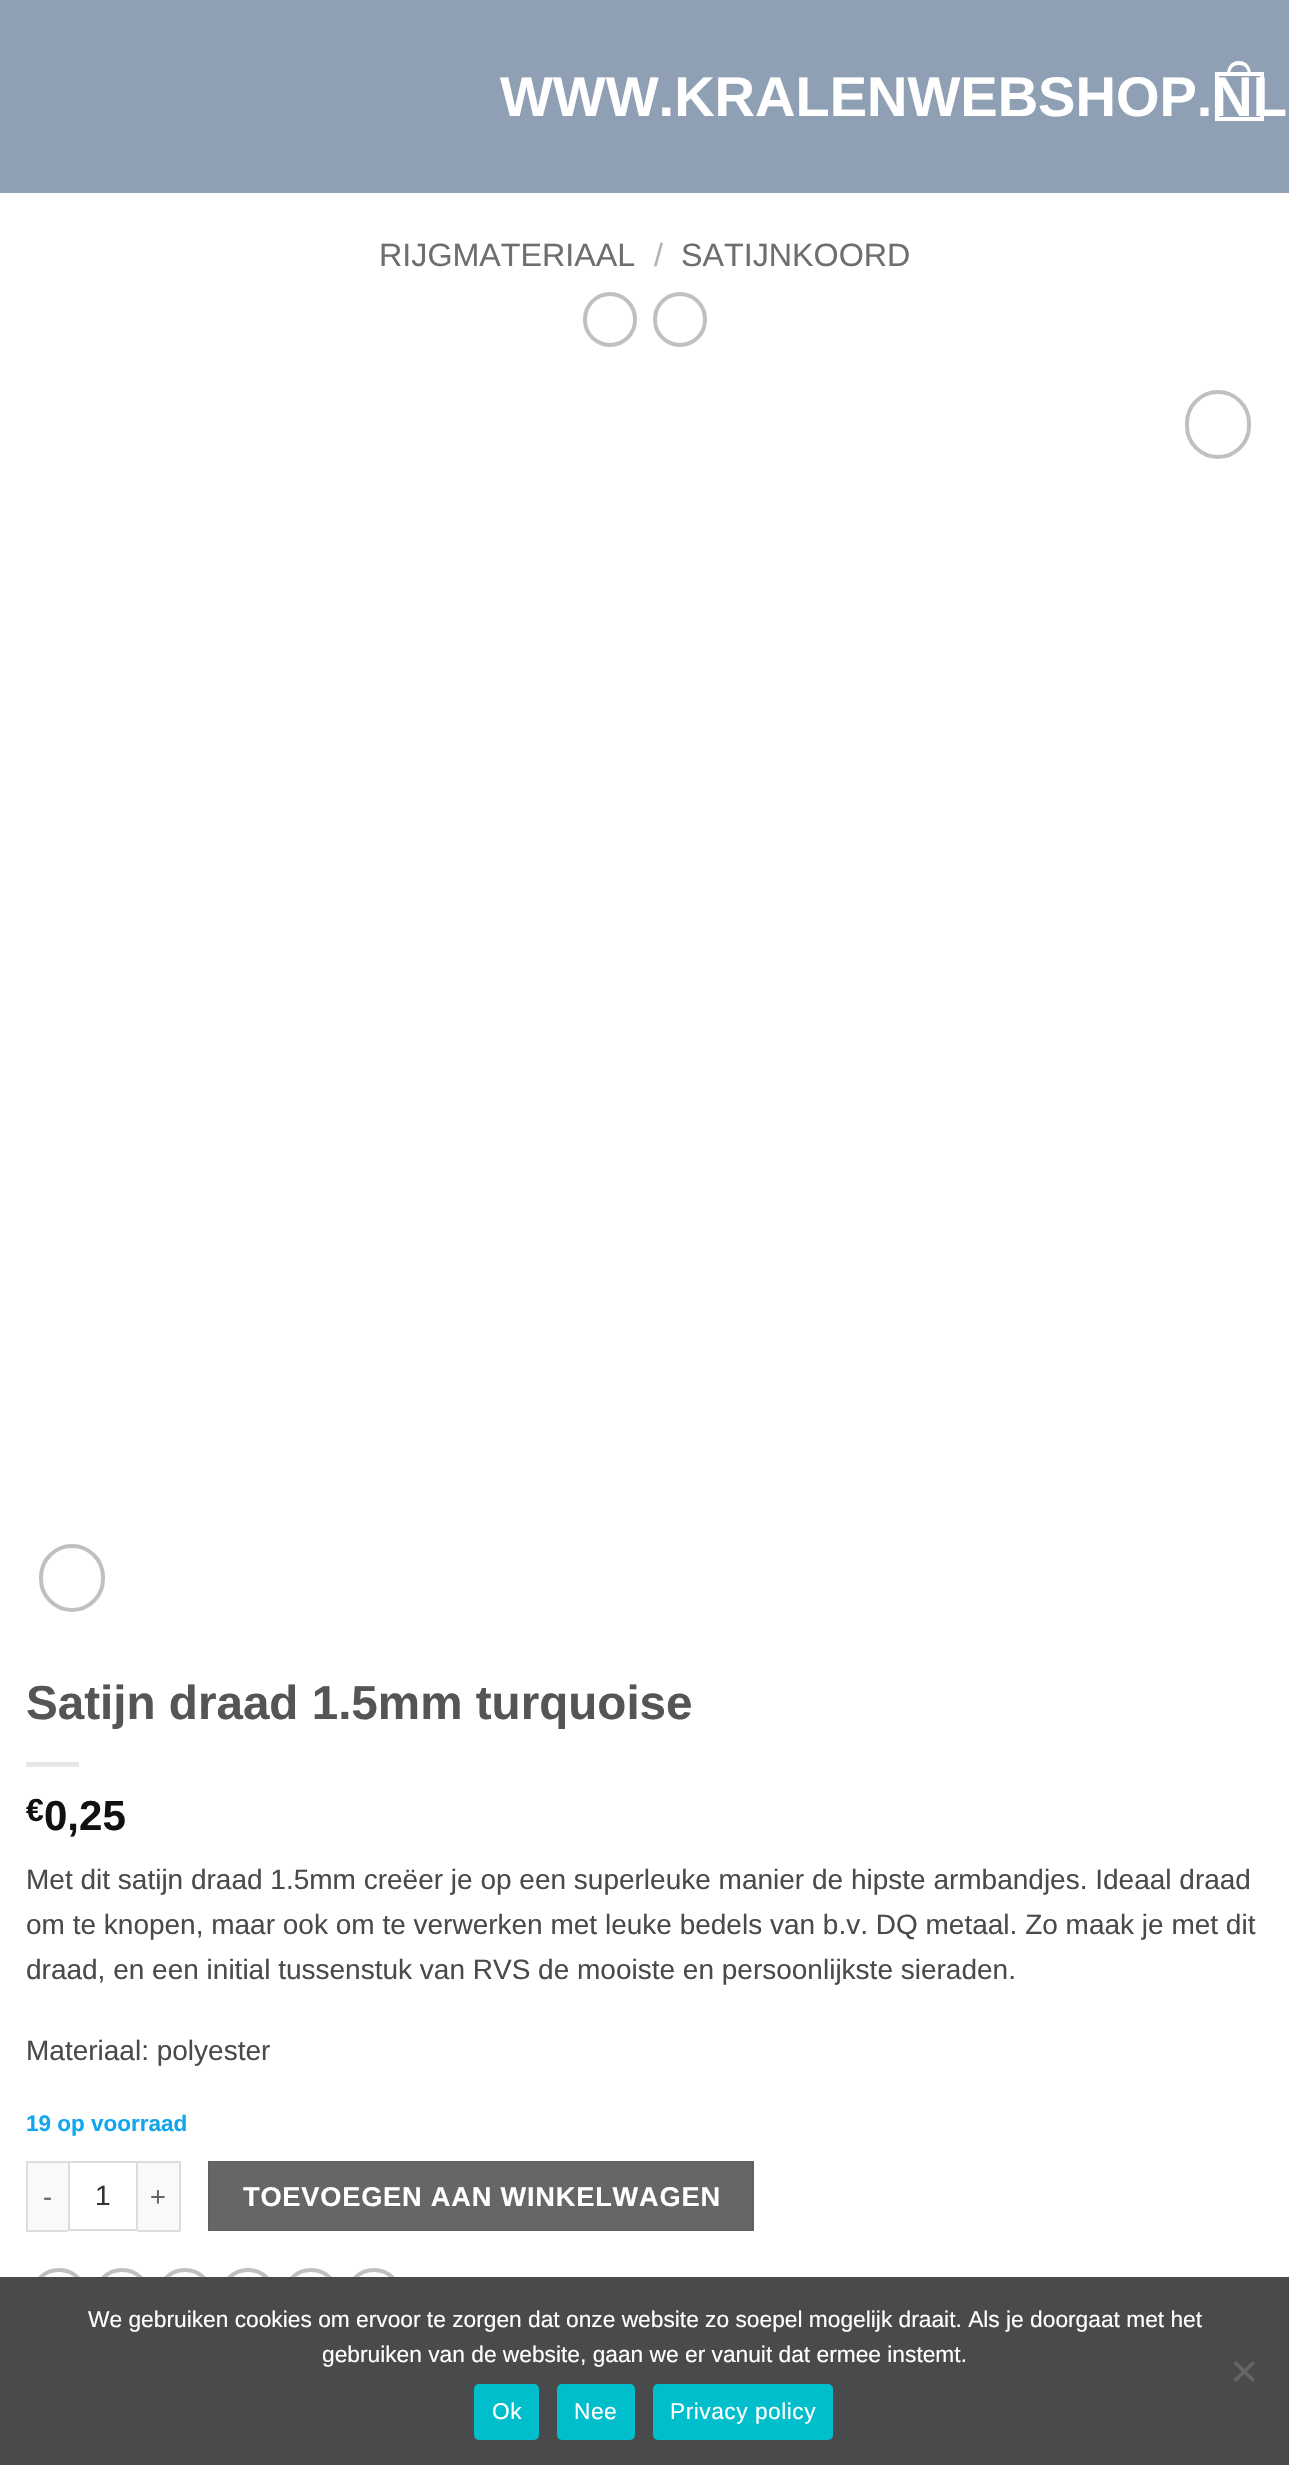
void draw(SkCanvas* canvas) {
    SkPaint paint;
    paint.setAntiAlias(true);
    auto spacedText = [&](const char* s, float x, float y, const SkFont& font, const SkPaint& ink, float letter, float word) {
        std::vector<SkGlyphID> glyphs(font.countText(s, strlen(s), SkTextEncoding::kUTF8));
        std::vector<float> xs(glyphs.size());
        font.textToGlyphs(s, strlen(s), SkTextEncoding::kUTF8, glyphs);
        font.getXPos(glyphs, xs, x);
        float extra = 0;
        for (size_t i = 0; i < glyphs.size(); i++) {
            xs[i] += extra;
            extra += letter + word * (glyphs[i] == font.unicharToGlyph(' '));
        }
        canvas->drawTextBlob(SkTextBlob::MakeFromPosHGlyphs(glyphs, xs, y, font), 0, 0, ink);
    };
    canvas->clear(0xFFFFFFFF);
    paint.setColor(0xFF8FA0B5);
    canvas->drawRect(SkRect::MakeXYWH(0, 0, 1289, 193), paint);
    paint.setStyle(SkPaint::kStroke_Style);
    paint.setStrokeWidth(4);
    paint.setColor(0xFFFFFFFF);
    canvas->drawRect(SkRect::MakeXYWH(1217, 74, 45, 45), paint);
    paint.setStyle(SkPaint::kFill_Style);
    canvas->drawPath(SkPathBuilder(SkPathFillType::kEvenOdd).moveTo(1239, 61).cubicTo(1247.5f, 61, 1251, 67.5f, 1251, 75).lineTo(1227, 75).cubicTo(1227, 67.5f, 1230.5f, 61, 1239, 61).close().moveTo(1239, 65).cubicTo(1245.5f, 65, 1248, 69.5f, 1248, 75).lineTo(1230, 75).cubicTo(1230, 69.5f, 1232.5f, 65, 1239, 65).close().detach(), paint);
    SkFont font1(fontMgr->matchFamilyStyle("Liberation Sans", SkFontStyle::Bold()), 56);
    font1.setSubpixel(true);
    canvas->drawString("WWW.KRALENWEBSHOP.NL", 500, 116, font1, paint);
    SkFont font2(fontMgr->matchFamilyStyle("Liberation Sans", SkFontStyle::Normal()), 32.25f);
    font2.setSubpixel(true);
    paint.setColor(0xFF6E6E6E);
    canvas->drawString("RIJGMATERIAAL", 379, 266, font2, paint);
    paint.setColor(0xFFB2B2B2);
    canvas->drawString("/", 654, 266, font2, paint);
    paint.setColor(0xFF6E6E6E);
    canvas->drawString("SATIJNKOORD", 681, 266, font2, paint);
    paint.setStyle(SkPaint::kStroke_Style);
    paint.setColor(0xFFC0C0C0);
    canvas->drawRoundRect(SkRect::MakeXYWH(585, 294, 50, 51), 25, 25, paint);
    canvas->drawRoundRect(SkRect::MakeXYWH(655, 294, 50, 51), 25, 25, paint);
    canvas->drawRoundRect(SkRect::MakeXYWH(1187, 392, 62, 65), 31, 31, paint);
    canvas->drawRoundRect(SkRect::MakeXYWH(41, 1546, 62, 64), 31, 31, paint);
    SkFont font3(fontMgr->matchFamilyStyle("Liberation Sans", SkFontStyle::Bold()), 47.6f);
    font3.setSubpixel(true);
    paint.setStyle(SkPaint::kFill_Style);
    paint.setColor(0xFF555555);
    canvas->drawString("Satijn draad 1.5mm turquoise", 26, 1719, font3, paint);
    paint.setColor(0xFFE6E6E6);
    canvas->drawRect(SkRect::MakeXYWH(26, 1762, 53, 5), paint);
    SkFont font4(fontMgr->matchFamilyStyle("Liberation Sans", SkFontStyle::Bold()), 32);
    font4.setSubpixel(true);
    paint.setColor(0xFF111111);
    canvas->drawString("€", 26, 1821, font4, paint);
    SkFont font5(fontMgr->matchFamilyStyle("Liberation Sans", SkFontStyle::Bold()), 42);
    font5.setSubpixel(true);
    canvas->drawString("0,25", 44, 1830, font5, paint);
    SkFont font6(fontMgr->matchFamilyStyle("Liberation Sans", SkFontStyle::Normal()), 28);
    font6.setSubpixel(true);
    paint.setColor(0xFF4A4A4A);
    canvas->drawString("Met dit satijn draad 1.5mm creëer je op een superleuke manier de hipste armbandjes. Ideaal draad", 26, 1889, font6, paint);
    canvas->drawString("om te knopen, maar ook om te verwerken met leuke bedels van b.v. DQ metaal. Zo maak je met dit", 26, 1934, font6, paint);
    canvas->drawString("draad, en een initial tussenstuk van RVS de mooiste en persoonlijkste sieraden.", 26, 1979, font6, paint);
    canvas->drawString("Materiaal: polyester", 26, 2060, font6, paint);
    SkFont font7(fontMgr->matchFamilyStyle("Liberation Sans", SkFontStyle::Bold()), 22.5f);
    font7.setSubpixel(true);
    paint.setColor(0xFF10A5EF);
    canvas->drawString("19 op voorraad", 26, 2131, font7, paint);
    paint.setColor(0xFFF9F9F9);
    canvas->drawRect(SkRect::MakeXYWH(28, 2163, 40, 67), paint);
    paint.setColor(0xFFDDDDDD);
    canvas->drawRect(SkRect::MakeXYWH(26, 2161, 42, 2), paint);
    canvas->drawRect(SkRect::MakeXYWH(26, 2230, 42, 2), paint);
    canvas->drawRect(SkRect::MakeXYWH(26, 2161, 2, 70), paint);
    SkFont font8(fontMgr->matchFamilyStyle("Liberation Sans", SkFontStyle::Normal()), 27.2f);
    font8.setSubpixel(true);
    paint.setColor(0xFF666666);
    spacedText("-", 43, 2206, font8, paint, 0.8f, 0);
    paint.setStyle(SkPaint::kStroke_Style);
    paint.setStrokeWidth(2);
    paint.setColor(0xFFDDDDDD);
    canvas->drawRect(SkRect::MakeXYWH(69, 2162, 68, 68), paint);
    paint.setStyle(SkPaint::kFill_Style);
    paint.setColor(0xFF333333);
    canvas->drawString("1", 95, 2205, font6, paint);
    paint.setColor(0xFFF9F9F9);
    canvas->drawRect(SkRect::MakeXYWH(138, 2163, 41, 67), paint);
    paint.setColor(0xFFDDDDDD);
    canvas->drawRect(SkRect::MakeXYWH(138, 2161, 42, 2), paint);
    canvas->drawRect(SkRect::MakeXYWH(179, 2161, 2, 70), paint);
    canvas->drawRect(SkRect::MakeXYWH(138, 2230, 42, 2), paint);
    paint.setColor(0xFF666666);
    spacedText("+", 150, 2206, font8, paint, 0.8f, 0);
    paint.setColor(0xFF646668);
    canvas->drawRect(SkRect::MakeXYWH(209, 2162, 544, 68), paint);
    paint.setStyle(SkPaint::kStroke_Style);
    paint.setColor(0xFF5F6163);
    canvas->drawRect(SkRect::MakeXYWH(209, 2162, 544, 68), paint);
    SkFont font9(fontMgr->matchFamilyStyle("Liberation Sans", SkFontStyle::Bold()), 27.2f);
    font9.setSubpixel(true);
    paint.setStyle(SkPaint::kFill_Style);
    paint.setColor(0xFFFFFFFF);
    spacedText("TOEVOEGEN AAN WINKELWAGEN", 243, 2206, font9, paint, 0.8f, 0);
    paint.setStyle(SkPaint::kStroke_Style);
    paint.setStrokeWidth(4);
    paint.setColor(0xFFC0C0C0);
    canvas->drawCircle(59, 2297, 27, paint);
    canvas->drawCircle(122, 2297, 27, paint);
    canvas->drawCircle(185, 2297, 27, paint);
    canvas->drawCircle(248, 2297, 27, paint);
    canvas->drawCircle(311, 2297, 27, paint);
    canvas->drawCircle(374, 2297, 27, paint);
    paint.setStyle(SkPaint::kFill_Style);
    paint.setColor(0xFF494A4C);
    canvas->drawRect(SkRect::MakeXYWH(0, 2277, 1289, 188), paint);
    SkFont font10(fontMgr->matchFamilyStyle("Liberation Sans", SkFontStyle::Normal()), 22.75f);
    font10.setSubpixel(true);
    paint.setColor(0xFFFFFFFF);
    canvas->drawString("We gebruiken cookies om ervoor te zorgen dat onze website zo soepel mogelijk draait. Als je doorgaat met het", 88, 2327, font10, paint);
    canvas->drawString("gebruiken van de website, gaan we er vanuit dat ermee instemt.", 322, 2362, font10, paint);
    paint.setColor(0xFF656566);
    canvas->drawPath(SkPathBuilder().moveTo(1252.5f, 2361).lineTo(1255, 2363.5f).lineTo(1236, 2382).lineTo(1233.5f, 2379.5f).close().detach(), paint);
    canvas->drawPath(SkPathBuilder().moveTo(1233.5f, 2363.5f).lineTo(1236, 2361).lineTo(1255, 2379.5f).lineTo(1252.5f, 2382).close().detach(), paint);
    paint.setColor(0xFF00BECC);
    canvas->drawRoundRect(SkRect::MakeXYWH(474, 2384, 65, 56), 5, 5, paint);
    paint.setColor(0xFFFFFFFF);
    spacedText("Ok", 492, 2419, font10, paint, 0.5f, 0);
    paint.setColor(0xFF00BECC);
    canvas->drawRoundRect(SkRect::MakeXYWH(557, 2384, 78, 56), 5, 5, paint);
    paint.setColor(0xFFFFFFFF);
    spacedText("Nee", 574, 2419, font10, paint, 0.5f, 0);
    paint.setColor(0xFF00BECC);
    canvas->drawRoundRect(SkRect::MakeXYWH(653, 2384, 180, 56), 5, 5, paint);
    paint.setColor(0xFFFFFFFF);
    spacedText("Privacy policy", 670, 2419, font10, paint, 0.5f, 0);
}
